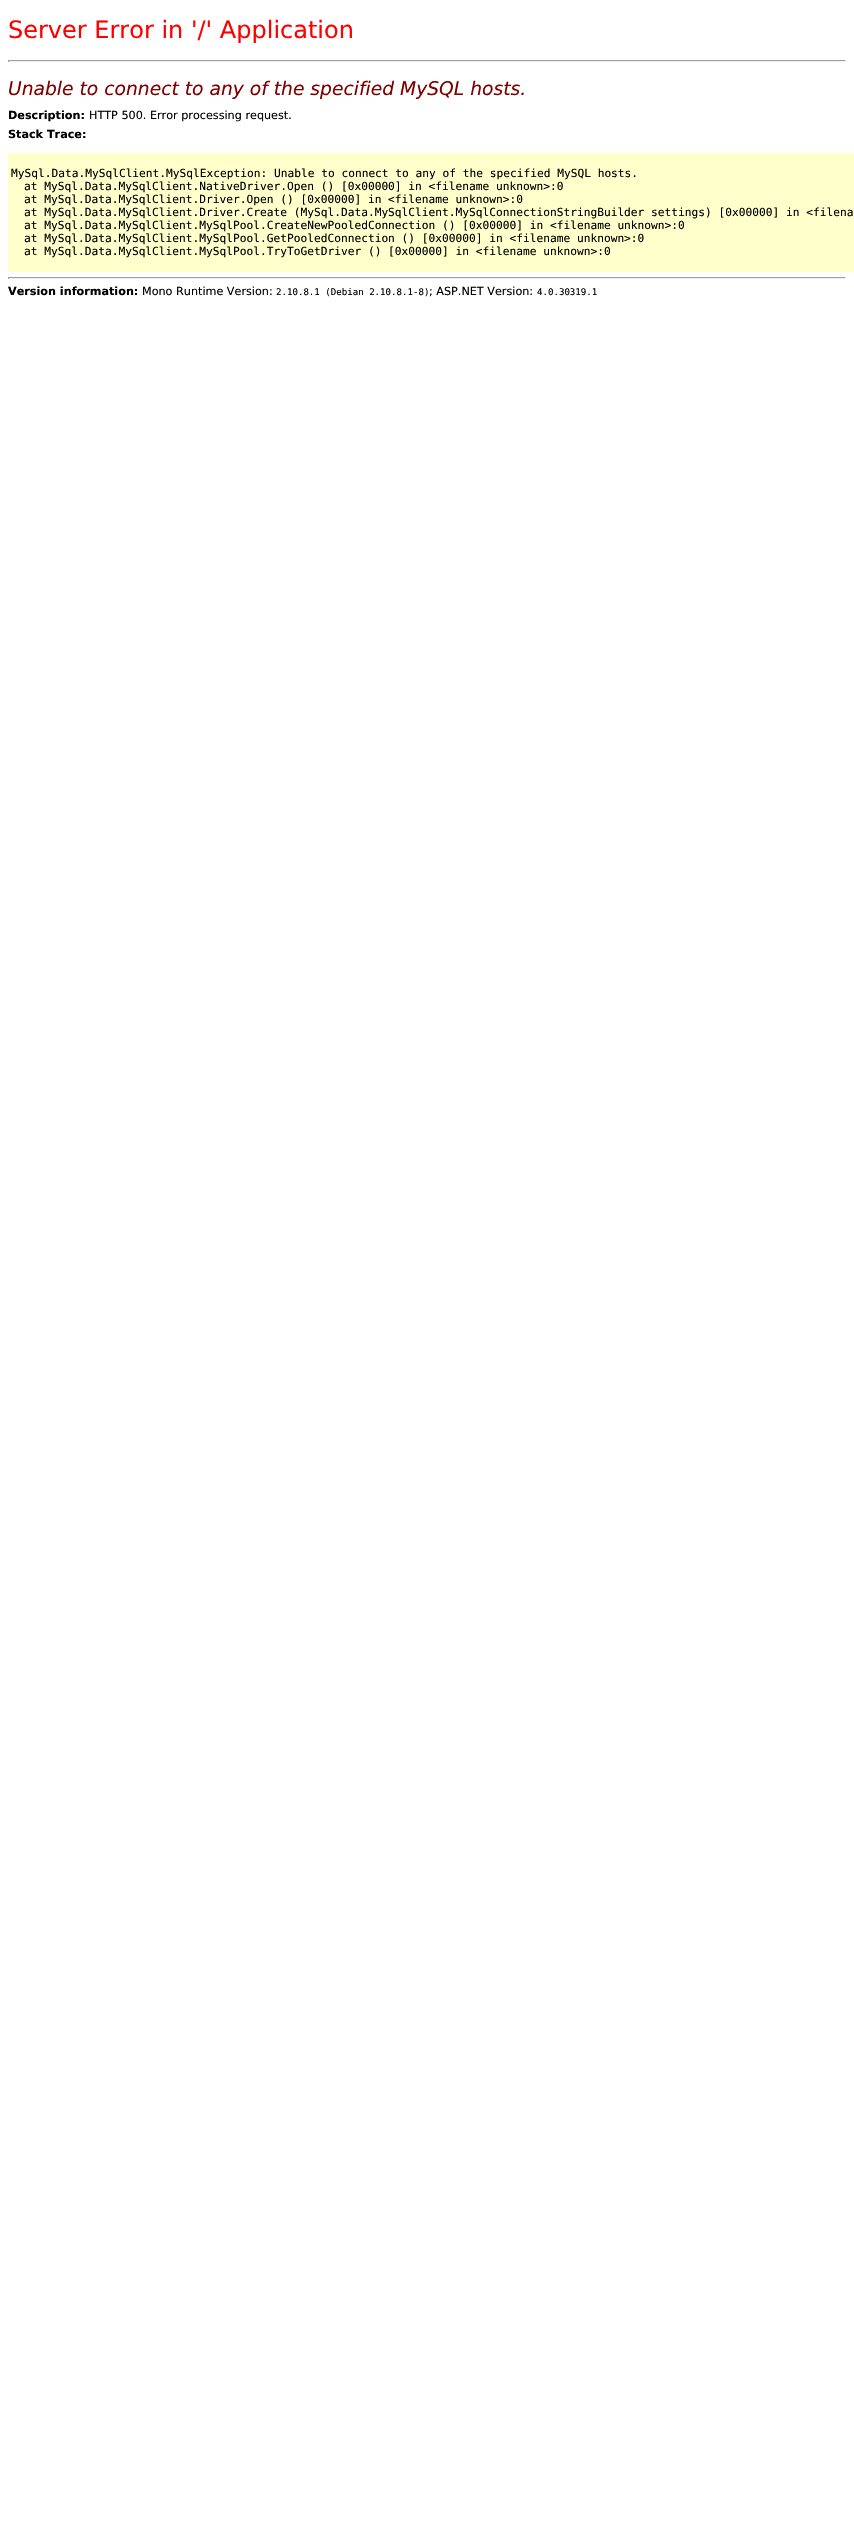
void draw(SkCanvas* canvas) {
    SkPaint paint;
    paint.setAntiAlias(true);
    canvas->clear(0xFFFFFFFF);
    SkFont font1(fontMgr->matchFamilyStyle("DejaVu Sans", SkFontStyle::Normal()), 24);
    font1.setSubpixel(true);
    paint.setColor(0xFFFF0000);
    canvas->drawString("Server Error in '/' Application", 8, 38, font1, paint);
    paint.setColor(0xFF9F9F9F);
    canvas->drawRect(SkRect::MakeXYWH(8, 60, 838, 1), paint);
    paint.setColor(0xFFEEEEEE);
    canvas->drawRect(SkRect::MakeXYWH(845, 60, 1, 2), paint);
    canvas->drawRect(SkRect::MakeXYWH(8, 61, 838, 1), paint);
    paint.setColor(0xFF9F9F9F);
    canvas->drawRect(SkRect::MakeXYWH(8, 60, 1, 2), paint);
    SkFont font2(fontMgr->matchFamilyStyle("DejaVu Sans", SkFontStyle::Italic()), 18.7f);
    font2.setSubpixel(true);
    paint.setColor(0xFF800000);
    canvas->drawString("Unable to connect to any of the specified MySQL hosts.", 8, 95, font2, paint);
    SkFont font3(fontMgr->matchFamilyStyle("DejaVu Sans", SkFontStyle::Bold()), 11.2f);
    font3.setSubpixel(true);
    paint.setColor(0xFF000000);
    canvas->drawString("Description:", 8, 119, font3, paint);
    SkFont font4(fontMgr->matchFamilyStyle("DejaVu Sans", SkFontStyle::Normal()), 11.2f);
    font4.setSubpixel(true);
    canvas->drawString("HTTP 500. Error processing request.", 89, 119, font4, paint);
    canvas->drawString("Stack Trace:", 8, 138, font3, paint);
    paint.setColor(0xFFFFFFCC);
    canvas->drawRect(SkRect::MakeXYWH(8, 153, 846, 119), paint);
    SkFont font5(fontMgr->matchFamilyStyle("DejaVu Sans Mono", SkFontStyle::Normal()), 11.2f);
    font5.setSubpixel(true);
    paint.setColor(0xFF000000);
    canvas->drawString("MySql.Data.MySqlClient.MySqlException: Unable to connect to any of the specified MySQL hosts.", 11, 177, font5, paint);
    canvas->drawString("at MySql.Data.MySqlClient.NativeDriver.Open () [0x00000] in <filename unknown>:0", 24, 190, font5, paint);
    canvas->drawString("at MySql.Data.MySqlClient.Driver.Open () [0x00000] in <filename unknown>:0", 24, 203, font5, paint);
    canvas->drawString("at MySql.Data.MySqlClient.Driver.Create (MySql.Data.MySqlClient.MySqlConnectionStringBuilder settings) [0x00000] in <filena", 24, 216, font5, paint);
    canvas->drawString("at MySql.Data.MySqlClient.MySqlPool.CreateNewPooledConnection () [0x00000] in <filename unknown>:0", 24, 229, font5, paint);
    canvas->drawString("at MySql.Data.MySqlClient.MySqlPool.GetPooledConnection () [0x00000] in <filename unknown>:0", 24, 242, font5, paint);
    canvas->drawString("at MySql.Data.MySqlClient.MySqlPool.TryToGetDriver () [0x00000] in <filename unknown>:0", 24, 255, font5, paint);
    paint.setColor(0xFF9F9F9F);
    canvas->drawRect(SkRect::MakeXYWH(8, 277, 838, 1), paint);
    paint.setColor(0xFFEEEEEE);
    canvas->drawRect(SkRect::MakeXYWH(845, 277, 1, 2), paint);
    canvas->drawRect(SkRect::MakeXYWH(8, 278, 838, 1), paint);
    paint.setColor(0xFF9F9F9F);
    canvas->drawRect(SkRect::MakeXYWH(8, 277, 1, 2), paint);
    paint.setColor(0xFF000000);
    canvas->drawString("Version information:", 8, 295, font3, paint);
    canvas->drawString("Mono Runtime Version:", 142, 295, font4, paint);
    SkFont font6(fontMgr->matchFamilyStyle("DejaVu Sans Mono", SkFontStyle::Normal()), 9.1f);
    font6.setSubpixel(true);
    canvas->drawString("2.10.8.1 (Debian 2.10.8.1-8)", 276, 295, font6, paint);
    canvas->drawString("; ASP.NET Version:", 429, 295, font4, paint);
    canvas->drawString("4.0.30319.1", 537, 295, font6, paint);
}
